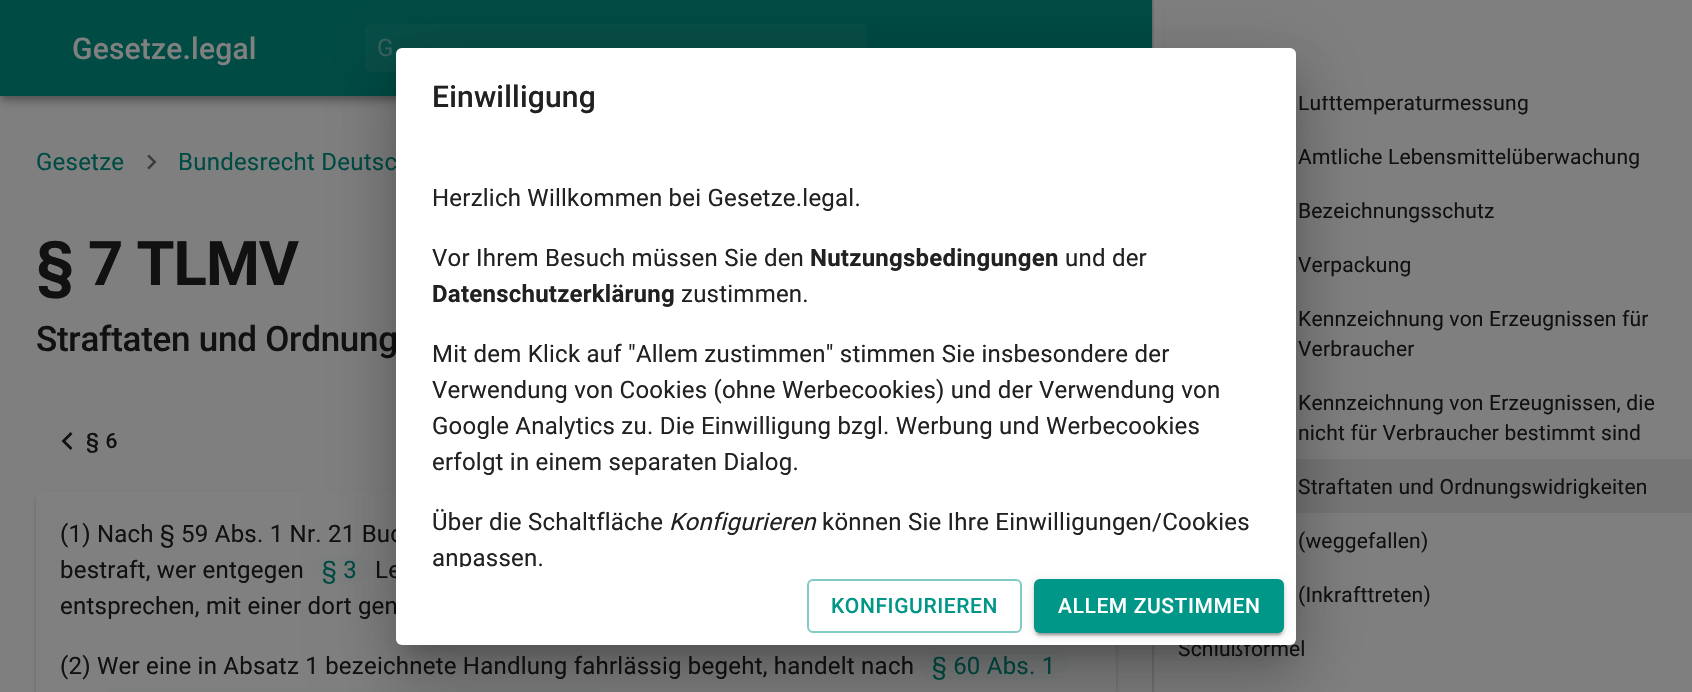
void draw(SkCanvas* canvas) {
    SkPaint paint;
    paint.setAntiAlias(true);
    auto spacedText = [&](const char* s, float x, float y, const SkFont& font, const SkPaint& ink, float letter, float word) {
        std::vector<SkGlyphID> glyphs(font.countText(s, strlen(s), SkTextEncoding::kUTF8));
        std::vector<float> xs(glyphs.size());
        font.textToGlyphs(s, strlen(s), SkTextEncoding::kUTF8, glyphs);
        font.getXPos(glyphs, xs, x);
        float extra = 0;
        for (size_t i = 0; i < glyphs.size(); i++) {
            xs[i] += extra;
            extra += letter + word * (glyphs[i] == font.unicharToGlyph(' '));
        }
        canvas->drawTextBlob(SkTextBlob::MakeFromPosHGlyphs(glyphs, xs, y, font), 0, 0, ink);
    };
    canvas->clear(0xFF7F7F7F);
    paint.setColor(0x1F000000);
    paint.setMaskFilter(SkMaskFilter::MakeBlur(kNormal_SkBlurStyle, 7.5f));
    canvas->drawRect(SkRect::MakeXYWH(0, 2, 1152, 96), paint);
    paint.setMaskFilter(nullptr);
    paint.setColor(0x24000000);
    paint.setMaskFilter(SkMaskFilter::MakeBlur(kNormal_SkBlurStyle, 4));
    canvas->drawRect(SkRect::MakeXYWH(0, 6, 1152, 96), paint);
    paint.setMaskFilter(nullptr);
    paint.setColor(0x33000000);
    paint.setMaskFilter(SkMaskFilter::MakeBlur(kNormal_SkBlurStyle, 3));
    canvas->drawRect(SkRect::MakeXYWH(2, 5, 1149, 93), paint);
    paint.setMaskFilter(nullptr);
    paint.setColor(0xFF004B44);
    canvas->drawRect(SkRect::MakeXYWH(0, 0, 1152, 96), paint);
    SkFont font1(fontMgr->matchFamilyStyle("Roboto", SkFontStyle(500, SkFontStyle::kNormal_Width, SkFontStyle::kUpright_Slant)), 30);
    font1.setSubpixel(true);
    paint.setColor(0xFF808080);
    spacedText("Gesetze.legal", 72, 59, font1, paint, 0.2f, 0);
    paint.setColor(0xFF074E47);
    canvas->drawRoundRect(SkRect::MakeXYWH(365, 24, 502, 48), 6, 6, paint);
    SkFont font2(fontMgr->matchFamilyStyle("Roboto", SkFontStyle::Normal()), 24);
    font2.setSubpixel(true);
    paint.setColor(0xFF3A635F);
    spacedText("G", 377, 56, font2, paint, 0.23f, 0);
    paint.setColor(0xFF004B44);
    spacedText("Gesetze", 36, 170, font2, paint, 0.23f, 0);
    canvas->drawImageRect(SkImages::DeferredFromEncodedData(SkData::MakeFromFileName("img1.png")), SkRect::MakeXYWH(147, 154, 10, 16), SkSamplingOptions());
    spacedText("Bundesrecht Deutsc", 178, 170, font2, paint, 0.23f, 0);
    SkFont font3(fontMgr->matchFamilyStyle("Roboto", SkFontStyle::Bold()), 61.5f);
    font3.setSubpixel(true);
    paint.setColor(0xFF111111);
    spacedText("§ 7 TLMV", 36, 285, font3, paint, -1, 0);
    SkFont font4(fontMgr->matchFamilyStyle("Roboto", SkFontStyle(500, SkFontStyle::kNormal_Width, SkFontStyle::kUpright_Slant)), 35);
    font4.setSubpixel(true);
    spacedText("Straftaten und Ordnung", 36, 351, font4, paint, -0.25f, 0);
    canvas->drawPath(SkPathBuilder().moveTo(72.5f, 434).lineTo(70.5f, 432).lineTo(61.5f, 441).lineTo(70.5f, 450).lineTo(72.5f, 448).lineTo(65.5f, 441).close().detach(), paint);
    SkFont font5(fontMgr->matchFamilyStyle("Roboto", SkFontStyle(500, SkFontStyle::kNormal_Width, SkFontStyle::kUpright_Slant)), 21);
    font5.setSubpixel(true);
    spacedText("§ 6", 86, 448, font5, paint, 0.6f, 0);
    paint.setColor(0x1F000000);
    paint.setMaskFilter(SkMaskFilter::MakeBlur(kNormal_SkBlurStyle, 2));
    canvas->drawRoundRect(SkRect::MakeXYWH(36, 494, 1080, 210), 6, 6, paint);
    paint.setMaskFilter(nullptr);
    paint.setColor(0x24000000);
    paint.setMaskFilter(SkMaskFilter::MakeBlur(kNormal_SkBlurStyle, 1));
    canvas->drawRoundRect(SkRect::MakeXYWH(36, 494, 1080, 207), 6, 6, paint);
    paint.setMaskFilter(nullptr);
    paint.setColor(0xFF808080);
    canvas->drawRoundRect(SkRect::MakeXYWH(36, 492, 1080, 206), 6, 6, paint);
    paint.setColor(0xFF111111);
    spacedText("(1) Nach § 59 Abs. 1 Nr. 21 Buc", 60, 542, font2, paint, 0.23f, 0);
    spacedText("bestraft, wer entgegen", 60, 578, font2, paint, 0.23f, 0);
    paint.setColor(0xFF7C7F7E);
    canvas->drawRoundRect(SkRect::MakeXYWH(311, 555, 58, 29), 14.5f, 14.5f, paint);
    paint.setColor(0xFF004B44);
    spacedText("§ 3", 322, 578, font2, paint, 0.23f, 0);
    paint.setColor(0xFF111111);
    spacedText("Le", 375, 578, font2, paint, 0.23f, 0);
    spacedText("entsprechen, mit einer dort gen", 60, 614, font2, paint, 0.23f, 0);
    spacedText("(2) Wer eine in Absatz 1 bezeichnete Handlung fahrlässig begeht, handelt nach", 60, 674, font2, paint, 0.23f, 0);
    paint.setColor(0xFF7C7F7E);
    canvas->drawRoundRect(SkRect::MakeXYWH(920, 651, 148, 29), 14.5f, 14.5f, paint);
    paint.setColor(0xFF004B44);
    spacedText("§ 60 Abs. 1", 932, 674, font2, paint, 0.23f, 0);
    paint.setColor(0xFF7C7F7E);
    canvas->drawRoundRect(SkRect::MakeXYWH(105, 687, 504, 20), 14.5f, 14.5f, paint);
    paint.setColor(0xFF808080);
    canvas->drawRect(SkRect::MakeXYWH(1154, 0, 8, 106), paint);
    paint.setColor(0xFF707070);
    canvas->drawRect(SkRect::MakeXYWH(1152, 0, 2, 692), paint);
    canvas->save();
    canvas->clipRect(SkRect::MakeXYWH(1154, 96, 538, 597));
    SkFont font6(fontMgr->matchFamilyStyle("Roboto", SkFontStyle::Normal()), 21);
    font6.setSubpixel(true);
    paint.setColor(0xFF111111);
    spacedText("Lufttemperaturmessung", 1298, 110, font6, paint, 0.2f, 0);
    canvas->restore();
    spacedText("Amtliche Lebensmittelüberwachung", 1298, 164, font6, paint, 0.2f, 0);
    spacedText("Bezeichnungsschutz", 1298, 218, font6, paint, 0.2f, 0);
    spacedText("Verpackung", 1298, 272, font6, paint, 0.2f, 0);
    spacedText("Kennzeichnung von Erzeugnissen für", 1298, 326, font6, paint, 0.2f, 0);
    spacedText("Verbraucher", 1298, 356, font6, paint, 0.2f, 0);
    spacedText("Kennzeichnung von Erzeugnissen, die", 1298, 410, font6, paint, 0.2f, 0);
    spacedText("nicht für Verbraucher bestimmt sind", 1298, 440, font6, paint, 0.2f, 0);
    paint.setColor(0xFF767676);
    canvas->drawRect(SkRect::MakeXYWH(1296, 459, 396, 54), paint);
    paint.setColor(0xFF111111);
    spacedText("Straftaten und Ordnungswidrigkeiten", 1298, 494, font6, paint, 0.2f, 0);
    spacedText("(weggefallen)", 1298, 548, font6, paint, 0.2f, 0);
    spacedText("(Inkrafttreten)", 1298, 602, font6, paint, 0.2f, 0);
    spacedText("Schlußformel", 1178, 656, font6, paint, 0.2f, 0);
    paint.setColor(0x1F000000);
    paint.setMaskFilter(SkMaskFilter::MakeBlur(kNormal_SkBlurStyle, 34.5f));
    canvas->drawRoundRect(SkRect::MakeXYWH(384, 50, 924, 621), 18, 18, paint);
    paint.setMaskFilter(nullptr);
    paint.setColor(0x24000000);
    paint.setMaskFilter(SkMaskFilter::MakeBlur(kNormal_SkBlurStyle, 28.5f));
    canvas->drawRoundRect(SkRect::MakeXYWH(392, 80, 909, 606), 11, 11, paint);
    paint.setMaskFilter(nullptr);
    paint.setColor(0x33000000);
    paint.setMaskFilter(SkMaskFilter::MakeBlur(kNormal_SkBlurStyle, 11));
    canvas->drawRect(SkRect::MakeXYWH(407, 75, 879, 576), paint);
    paint.setMaskFilter(nullptr);
    paint.setColor(0xFFFFFFFF);
    canvas->drawRoundRect(SkRect::MakeXYWH(396, 48, 900, 597), 6, 6, paint);
    paint.setColor(0xFF212121);
    spacedText("Einwilligung", 432, 107, font1, paint, 0.2f, 0);
    spacedText("Herzlich Willkommen bei Gesetze.legal.", 432, 206, font2, paint, 0.23f, 0);
    spacedText("Vor Ihrem Besuch müssen Sie den", 432, 266, font2, paint, 0.23f, 0);
    SkFont font7(fontMgr->matchFamilyStyle("Roboto", SkFontStyle::Bold()), 24);
    font7.setSubpixel(true);
    spacedText("Nutzungsbedingungen", 810, 266, font7, paint, 0.23f, 0);
    spacedText("und der", 1065, 266, font2, paint, 0.23f, 0);
    spacedText("Datenschutzerklärung", 432, 302, font7, paint, 0.23f, 0);
    spacedText("zustimmen.", 681, 302, font2, paint, 0.23f, 0);
    spacedText("Mit dem Klick auf \"Allem zustimmen\" stimmen Sie insbesondere der", 432, 362, font2, paint, 0.23f, 0);
    spacedText("Verwendung von Cookies (ohne Werbecookies) und der Verwendung von", 432, 398, font2, paint, 0.23f, 0);
    spacedText("Google Analytics zu. Die Einwilligung bzgl. Werbung und Werbecookies", 432, 434, font2, paint, 0.23f, 0);
    spacedText("erfolgt in einem separaten Dialog.", 432, 470, font2, paint, 0.23f, 0);
    spacedText("Über die Schaltfläche", 432, 530, font2, paint, 0.23f, 0);
    SkFont font8(fontMgr->matchFamilyStyle("Roboto", SkFontStyle::Italic()), 24);
    font8.setSubpixel(true);
    spacedText("Konfigurieren", 669, 530, font8, paint, 0.23f, 0);
    spacedText("können Sie Ihre Einwilligungen/Cookies", 822, 530, font2, paint, 0.23f, 0);
    canvas->save();
    canvas->clipRect(SkRect::MakeXYWH(396, 144, 900, 423));
    spacedText("anpassen.", 432, 566, font2, paint, 0.23f, 0);
    canvas->restore();
    paint.setStyle(SkPaint::kStroke_Style);
    paint.setStrokeWidth(2);
    paint.setColor(0xFF80CBC4);
    canvas->drawRoundRect(SkRect::MakeXYWH(808, 580, 213, 52), 5, 5, paint);
    paint.setStyle(SkPaint::kFill_Style);
    paint.setColor(0xFF009688);
    spacedText("KONFIGURIEREN", 831, 613, font5, paint, 0.6f, 0);
    paint.setColor(0x1F000000);
    paint.setMaskFilter(SkMaskFilter::MakeBlur(kNormal_SkBlurStyle, 4));
    canvas->drawRoundRect(SkRect::MakeXYWH(1034, 581, 250, 54), 6, 6, paint);
    paint.setMaskFilter(nullptr);
    paint.setColor(0x24000000);
    paint.setMaskFilter(SkMaskFilter::MakeBlur(kNormal_SkBlurStyle, 1.5f));
    canvas->drawRoundRect(SkRect::MakeXYWH(1034, 582, 250, 54), 6, 6, paint);
    paint.setMaskFilter(nullptr);
    paint.setColor(0x33000000);
    paint.setMaskFilter(SkMaskFilter::MakeBlur(kNormal_SkBlurStyle, 1));
    canvas->drawRoundRect(SkRect::MakeXYWH(1037, 587, 244, 48), 3, 3, paint);
    paint.setMaskFilter(nullptr);
    paint.setColor(0xFF009688);
    canvas->drawRoundRect(SkRect::MakeXYWH(1034, 579, 250, 54), 6, 6, paint);
    paint.setColor(0xFFFFFFFF);
    spacedText("ALLEM ZUSTIMMEN", 1058, 613, font5, paint, 0.6f, 0);
}
